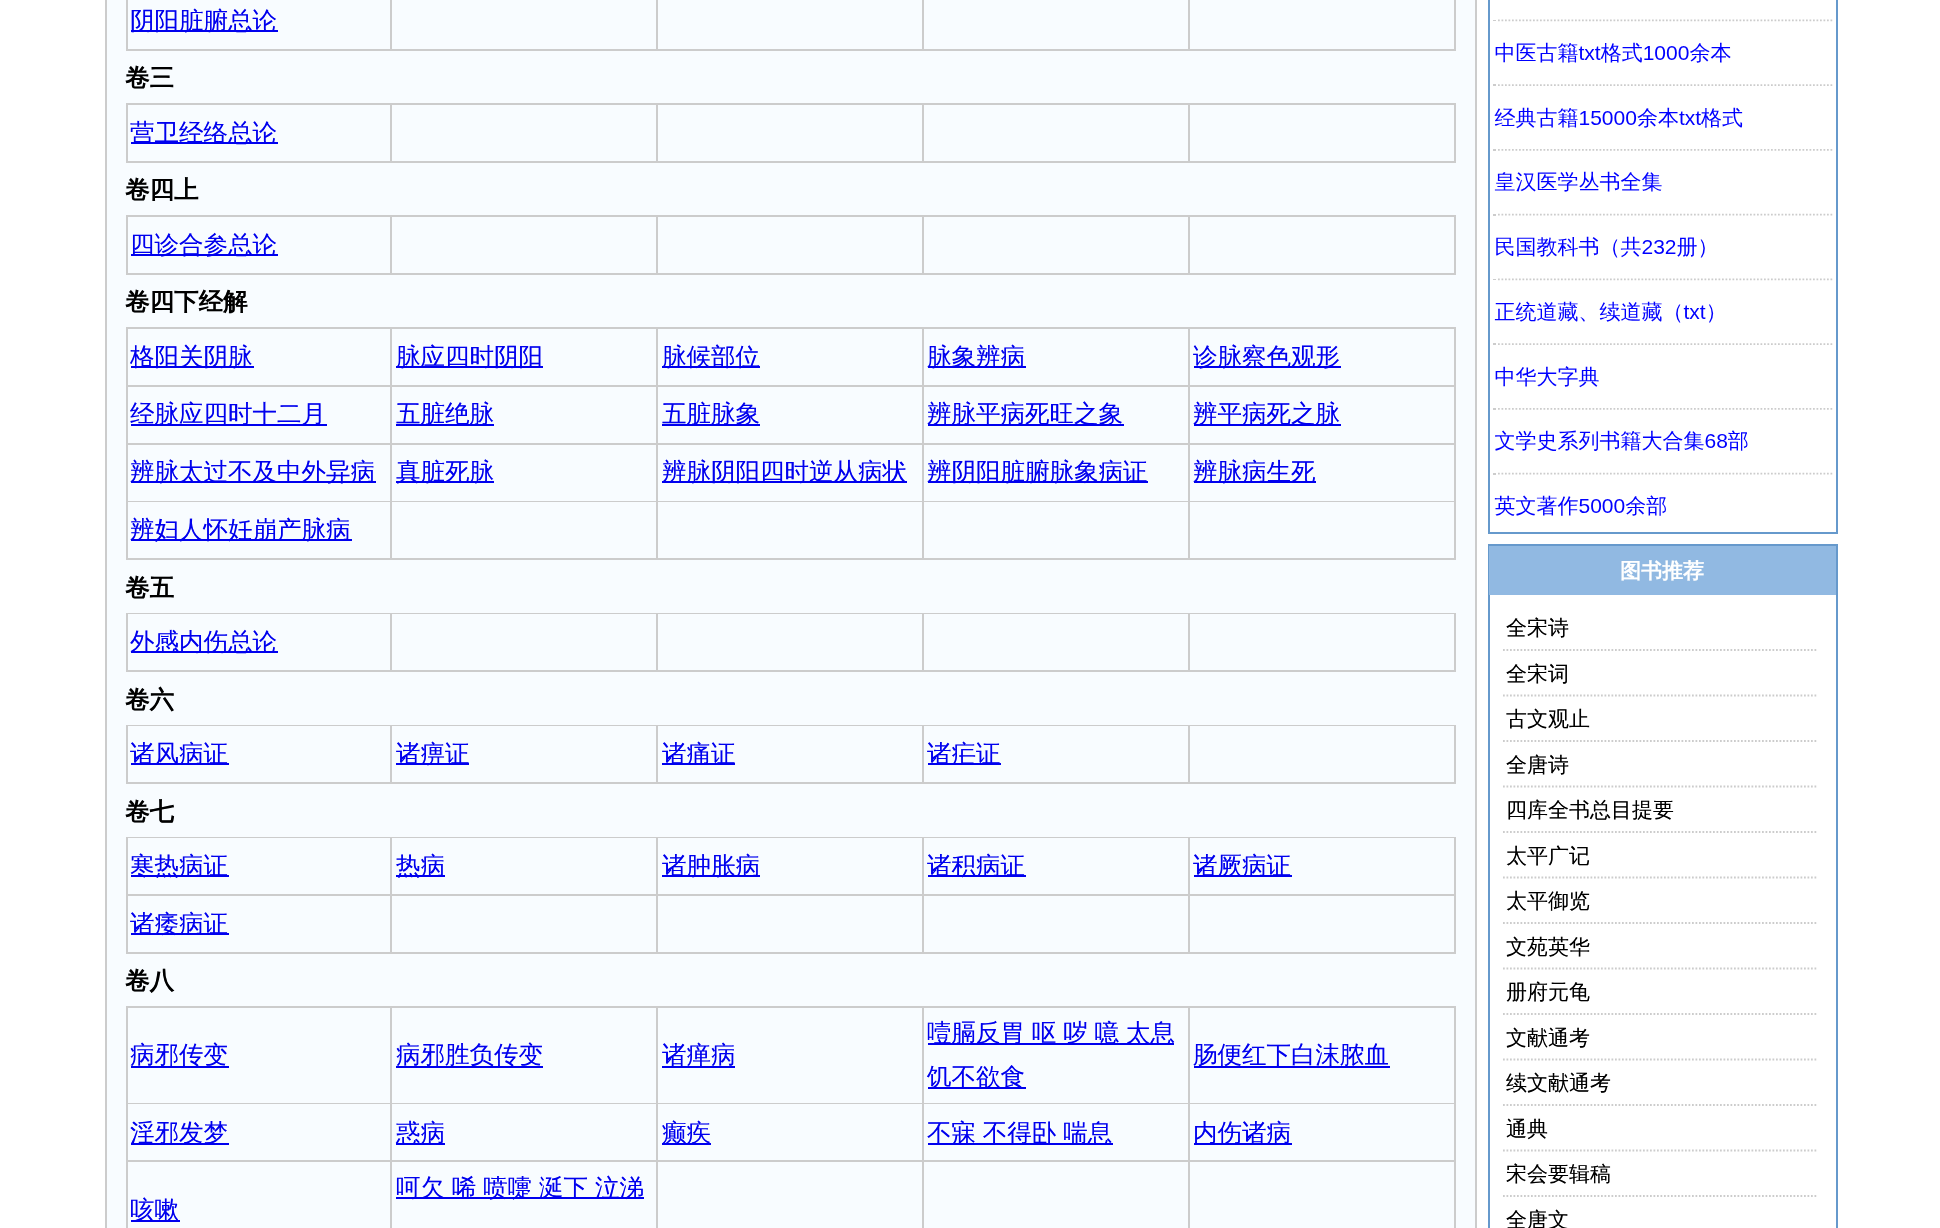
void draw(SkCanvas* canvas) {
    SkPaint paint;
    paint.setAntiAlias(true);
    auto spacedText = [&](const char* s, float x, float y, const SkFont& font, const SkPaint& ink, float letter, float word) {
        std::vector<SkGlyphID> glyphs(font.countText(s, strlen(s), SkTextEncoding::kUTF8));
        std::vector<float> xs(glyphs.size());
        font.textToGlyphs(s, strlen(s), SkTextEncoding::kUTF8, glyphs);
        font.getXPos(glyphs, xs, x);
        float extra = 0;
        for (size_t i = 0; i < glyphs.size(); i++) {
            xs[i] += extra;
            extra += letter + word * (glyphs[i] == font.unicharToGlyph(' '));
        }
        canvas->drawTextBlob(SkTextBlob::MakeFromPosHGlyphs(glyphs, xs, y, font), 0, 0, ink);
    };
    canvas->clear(0xFFFFFFFF);
    paint.setColor(0xFFF8FCFF);
    canvas->drawRect(SkRect::MakeXYWH(106, -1, 1370, 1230), paint);
    paint.setStyle(SkPaint::kStroke_Style);
    paint.setStrokeWidth(2);
    paint.setColor(0xFFCCCCCC);
    canvas->drawRect(SkRect::MakeXYWH(106, -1, 1370, 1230), paint);
    paint.setStyle(SkPaint::kFill_Style);
    canvas->drawRect(SkRect::MakeXYWH(126, 0, 1330, 51), paint);
    paint.setColor(0xFFF8FCFF);
    canvas->drawRect(SkRect::MakeXYWH(128, 0, 262, 49), paint);
    paint.setColor(0xFF0000EE);
    canvas->drawRect(SkRect::MakeXYWH(131, 30, 147, 2), paint);
    SkFont font1(fontMgr->matchFamilyStyle("WenQuanYi Zen Hei", SkFontStyle(500, SkFontStyle::kNormal_Width, SkFontStyle::kUpright_Slant)), 24.5f);
    font1.setSubpixel(true);
    canvas->drawString("阴阳脏腑总论", 130, 29, font1, paint);
    paint.setColor(0xFFF8FCFF);
    canvas->drawRect(SkRect::MakeXYWH(392, 0, 264, 49), paint);
    canvas->drawRect(SkRect::MakeXYWH(658, 0, 264, 49), paint);
    canvas->drawRect(SkRect::MakeXYWH(924, 0, 264, 49), paint);
    canvas->drawRect(SkRect::MakeXYWH(1190, 0, 264, 49), paint);
    SkFont font2(fontMgr->matchFamilyStyle("WenQuanYi Zen Hei", SkFontStyle::Bold()), 24.5f);
    font2.setSubpixel(true);
    paint.setColor(0xFF000000);
    canvas->drawString("卷三", 125, 86, font2, paint);
    paint.setColor(0xFFCCCCCC);
    canvas->drawRect(SkRect::MakeXYWH(126, 103, 1330, 60), paint);
    paint.setColor(0xFFF8FCFF);
    canvas->drawRect(SkRect::MakeXYWH(128, 105, 262, 56), paint);
    paint.setColor(0xFF0000EE);
    canvas->drawRect(SkRect::MakeXYWH(131, 142, 147, 2), paint);
    canvas->drawString("营卫经络总论", 130, 141, font1, paint);
    paint.setColor(0xFFF8FCFF);
    canvas->drawRect(SkRect::MakeXYWH(392, 105, 264, 56), paint);
    canvas->drawRect(SkRect::MakeXYWH(658, 105, 264, 56), paint);
    canvas->drawRect(SkRect::MakeXYWH(924, 105, 264, 56), paint);
    canvas->drawRect(SkRect::MakeXYWH(1190, 105, 264, 56), paint);
    paint.setColor(0xFF000000);
    canvas->drawString("卷四上", 125, 198, font2, paint);
    paint.setColor(0xFFCCCCCC);
    canvas->drawRect(SkRect::MakeXYWH(126, 215, 1330, 60), paint);
    paint.setColor(0xFFF8FCFF);
    canvas->drawRect(SkRect::MakeXYWH(128, 217, 262, 56), paint);
    paint.setColor(0xFF0000EE);
    canvas->drawRect(SkRect::MakeXYWH(131, 254, 147, 2), paint);
    canvas->drawString("四诊合参总论", 130, 253, font1, paint);
    paint.setColor(0xFFF8FCFF);
    canvas->drawRect(SkRect::MakeXYWH(392, 217, 264, 56), paint);
    canvas->drawRect(SkRect::MakeXYWH(658, 217, 264, 56), paint);
    canvas->drawRect(SkRect::MakeXYWH(924, 217, 264, 56), paint);
    canvas->drawRect(SkRect::MakeXYWH(1190, 217, 264, 56), paint);
    paint.setColor(0xFF000000);
    canvas->drawString("卷四下经解", 125, 310, font2, paint);
    paint.setColor(0xFFCCCCCC);
    canvas->drawRect(SkRect::MakeXYWH(126, 327, 1330, 233), paint);
    paint.setColor(0xFFF8FCFF);
    canvas->drawRect(SkRect::MakeXYWH(128, 329, 262, 56), paint);
    paint.setColor(0xFF0000EE);
    canvas->drawRect(SkRect::MakeXYWH(131, 366, 123, 2), paint);
    canvas->drawString("格阳关阴脉", 130, 365, font1, paint);
    paint.setColor(0xFFF8FCFF);
    canvas->drawRect(SkRect::MakeXYWH(392, 329, 264, 56), paint);
    paint.setColor(0xFF0000EE);
    canvas->drawRect(SkRect::MakeXYWH(396, 366, 147, 2), paint);
    canvas->drawString("脉应四时阴阳", 396, 365, font1, paint);
    paint.setColor(0xFFF8FCFF);
    canvas->drawRect(SkRect::MakeXYWH(658, 329, 264, 56), paint);
    paint.setColor(0xFF0000EE);
    canvas->drawRect(SkRect::MakeXYWH(662, 366, 98, 2), paint);
    canvas->drawString("脉候部位", 662, 365, font1, paint);
    paint.setColor(0xFFF8FCFF);
    canvas->drawRect(SkRect::MakeXYWH(924, 329, 264, 56), paint);
    paint.setColor(0xFF0000EE);
    canvas->drawRect(SkRect::MakeXYWH(928, 366, 98, 2), paint);
    canvas->drawString("脉象辨病", 927, 365, font1, paint);
    paint.setColor(0xFFF8FCFF);
    canvas->drawRect(SkRect::MakeXYWH(1190, 329, 264, 56), paint);
    paint.setColor(0xFF0000EE);
    canvas->drawRect(SkRect::MakeXYWH(1194, 366, 147, 2), paint);
    canvas->drawString("诊脉察色观形", 1193, 365, font1, paint);
    paint.setColor(0xFFF8FCFF);
    canvas->drawRect(SkRect::MakeXYWH(128, 387, 262, 56), paint);
    paint.setColor(0xFF0000EE);
    canvas->drawRect(SkRect::MakeXYWH(131, 424, 196, 2), paint);
    canvas->drawString("经脉应四时十二月", 130, 422, font1, paint);
    paint.setColor(0xFFF8FCFF);
    canvas->drawRect(SkRect::MakeXYWH(392, 387, 264, 56), paint);
    paint.setColor(0xFF0000EE);
    canvas->drawRect(SkRect::MakeXYWH(396, 424, 98, 2), paint);
    canvas->drawString("五脏绝脉", 396, 422, font1, paint);
    paint.setColor(0xFFF8FCFF);
    canvas->drawRect(SkRect::MakeXYWH(658, 387, 264, 56), paint);
    paint.setColor(0xFF0000EE);
    canvas->drawRect(SkRect::MakeXYWH(662, 424, 98, 2), paint);
    canvas->drawString("五脏脉象", 662, 422, font1, paint);
    paint.setColor(0xFFF8FCFF);
    canvas->drawRect(SkRect::MakeXYWH(924, 387, 264, 56), paint);
    paint.setColor(0xFF0000EE);
    canvas->drawRect(SkRect::MakeXYWH(928, 424, 196, 2), paint);
    canvas->drawString("辨脉平病死旺之象", 927, 422, font1, paint);
    paint.setColor(0xFFF8FCFF);
    canvas->drawRect(SkRect::MakeXYWH(1190, 387, 264, 56), paint);
    paint.setColor(0xFF0000EE);
    canvas->drawRect(SkRect::MakeXYWH(1194, 424, 147, 2), paint);
    canvas->drawString("辨平病死之脉", 1193, 422, font1, paint);
    paint.setColor(0xFFF8FCFF);
    canvas->drawRect(SkRect::MakeXYWH(128, 445, 262, 56), paint);
    paint.setColor(0xFF0000EE);
    canvas->drawRect(SkRect::MakeXYWH(131, 481, 245, 2), paint);
    canvas->drawString("辨脉太过不及中外异病", 130, 480, font1, paint);
    paint.setColor(0xFFF8FCFF);
    canvas->drawRect(SkRect::MakeXYWH(392, 445, 264, 56), paint);
    paint.setColor(0xFF0000EE);
    canvas->drawRect(SkRect::MakeXYWH(396, 481, 98, 2), paint);
    canvas->drawString("真脏死脉", 396, 480, font1, paint);
    paint.setColor(0xFFF8FCFF);
    canvas->drawRect(SkRect::MakeXYWH(658, 445, 264, 56), paint);
    paint.setColor(0xFF0000EE);
    canvas->drawRect(SkRect::MakeXYWH(662, 481, 245, 2), paint);
    canvas->drawString("辨脉阴阳四时逆从病状", 662, 480, font1, paint);
    paint.setColor(0xFFF8FCFF);
    canvas->drawRect(SkRect::MakeXYWH(924, 445, 264, 56), paint);
    paint.setColor(0xFF0000EE);
    canvas->drawRect(SkRect::MakeXYWH(928, 481, 220, 2), paint);
    canvas->drawString("辨阴阳脏腑脉象病证", 927, 480, font1, paint);
    paint.setColor(0xFFF8FCFF);
    canvas->drawRect(SkRect::MakeXYWH(1190, 445, 264, 56), paint);
    paint.setColor(0xFF0000EE);
    canvas->drawRect(SkRect::MakeXYWH(1194, 481, 122, 2), paint);
    canvas->drawString("辨脉病生死", 1193, 480, font1, paint);
    paint.setColor(0xFFF8FCFF);
    canvas->drawRect(SkRect::MakeXYWH(128, 502, 262, 56), paint);
    paint.setColor(0xFF0000EE);
    canvas->drawRect(SkRect::MakeXYWH(131, 539, 221, 2), paint);
    canvas->drawString("辨妇人怀妊崩产脉病", 130, 538, font1, paint);
    paint.setColor(0xFFF8FCFF);
    canvas->drawRect(SkRect::MakeXYWH(392, 502, 264, 56), paint);
    canvas->drawRect(SkRect::MakeXYWH(658, 502, 264, 56), paint);
    canvas->drawRect(SkRect::MakeXYWH(924, 502, 264, 56), paint);
    canvas->drawRect(SkRect::MakeXYWH(1190, 502, 264, 56), paint);
    paint.setColor(0xFF000000);
    canvas->drawString("卷五", 125, 596, font2, paint);
    paint.setColor(0xFFCCCCCC);
    canvas->drawRect(SkRect::MakeXYWH(126, 613, 1330, 59), paint);
    paint.setColor(0xFFF8FCFF);
    canvas->drawRect(SkRect::MakeXYWH(128, 614, 262, 56), paint);
    paint.setColor(0xFF0000EE);
    canvas->drawRect(SkRect::MakeXYWH(131, 651, 147, 2), paint);
    canvas->drawString("外感内伤总论", 130, 650, font1, paint);
    paint.setColor(0xFFF8FCFF);
    canvas->drawRect(SkRect::MakeXYWH(392, 614, 264, 56), paint);
    canvas->drawRect(SkRect::MakeXYWH(658, 614, 264, 56), paint);
    canvas->drawRect(SkRect::MakeXYWH(924, 614, 264, 56), paint);
    canvas->drawRect(SkRect::MakeXYWH(1190, 614, 264, 56), paint);
    paint.setColor(0xFF000000);
    canvas->drawString("卷六", 125, 708, font2, paint);
    paint.setColor(0xFFCCCCCC);
    canvas->drawRect(SkRect::MakeXYWH(126, 725, 1330, 59), paint);
    paint.setColor(0xFFF8FCFF);
    canvas->drawRect(SkRect::MakeXYWH(128, 726, 262, 56), paint);
    paint.setColor(0xFF0000EE);
    canvas->drawRect(SkRect::MakeXYWH(131, 763, 98, 2), paint);
    canvas->drawString("诸风病证", 130, 762, font1, paint);
    paint.setColor(0xFFF8FCFF);
    canvas->drawRect(SkRect::MakeXYWH(392, 726, 264, 56), paint);
    paint.setColor(0xFF0000EE);
    canvas->drawRect(SkRect::MakeXYWH(396, 763, 73, 2), paint);
    canvas->drawString("诸痹证", 396, 762, font1, paint);
    paint.setColor(0xFFF8FCFF);
    canvas->drawRect(SkRect::MakeXYWH(658, 726, 264, 56), paint);
    paint.setColor(0xFF0000EE);
    canvas->drawRect(SkRect::MakeXYWH(662, 763, 73, 2), paint);
    canvas->drawString("诸痛证", 662, 762, font1, paint);
    paint.setColor(0xFFF8FCFF);
    canvas->drawRect(SkRect::MakeXYWH(924, 726, 264, 56), paint);
    paint.setColor(0xFF0000EE);
    canvas->drawRect(SkRect::MakeXYWH(928, 763, 73, 2), paint);
    canvas->drawString("诸疟证", 927, 762, font1, paint);
    paint.setColor(0xFFF8FCFF);
    canvas->drawRect(SkRect::MakeXYWH(1190, 726, 264, 56), paint);
    paint.setColor(0xFF000000);
    canvas->drawString("卷七", 125, 820, font2, paint);
    paint.setColor(0xFFCCCCCC);
    canvas->drawRect(SkRect::MakeXYWH(126, 837, 1330, 117), paint);
    paint.setColor(0xFFF8FCFF);
    canvas->drawRect(SkRect::MakeXYWH(128, 838, 262, 56), paint);
    paint.setColor(0xFF0000EE);
    canvas->drawRect(SkRect::MakeXYWH(131, 875, 98, 2), paint);
    canvas->drawString("寒热病证", 130, 874, font1, paint);
    paint.setColor(0xFFF8FCFF);
    canvas->drawRect(SkRect::MakeXYWH(392, 838, 264, 56), paint);
    paint.setColor(0xFF0000EE);
    canvas->drawRect(SkRect::MakeXYWH(396, 875, 49, 2), paint);
    canvas->drawString("热病", 396, 874, font1, paint);
    paint.setColor(0xFFF8FCFF);
    canvas->drawRect(SkRect::MakeXYWH(658, 838, 264, 56), paint);
    paint.setColor(0xFF0000EE);
    canvas->drawRect(SkRect::MakeXYWH(662, 875, 98, 2), paint);
    canvas->drawString("诸肿胀病", 662, 874, font1, paint);
    paint.setColor(0xFFF8FCFF);
    canvas->drawRect(SkRect::MakeXYWH(924, 838, 264, 56), paint);
    paint.setColor(0xFF0000EE);
    canvas->drawRect(SkRect::MakeXYWH(928, 875, 98, 2), paint);
    canvas->drawString("诸积病证", 927, 874, font1, paint);
    paint.setColor(0xFFF8FCFF);
    canvas->drawRect(SkRect::MakeXYWH(1190, 838, 264, 56), paint);
    paint.setColor(0xFF0000EE);
    canvas->drawRect(SkRect::MakeXYWH(1194, 875, 98, 2), paint);
    canvas->drawString("诸厥病证", 1193, 874, font1, paint);
    paint.setColor(0xFFF8FCFF);
    canvas->drawRect(SkRect::MakeXYWH(128, 896, 262, 56), paint);
    paint.setColor(0xFF0000EE);
    canvas->drawRect(SkRect::MakeXYWH(131, 933, 98, 2), paint);
    canvas->drawString("诸痿病证", 130, 932, font1, paint);
    paint.setColor(0xFFF8FCFF);
    canvas->drawRect(SkRect::MakeXYWH(392, 896, 264, 56), paint);
    canvas->drawRect(SkRect::MakeXYWH(658, 896, 264, 56), paint);
    canvas->drawRect(SkRect::MakeXYWH(924, 896, 264, 56), paint);
    canvas->drawRect(SkRect::MakeXYWH(1190, 896, 264, 56), paint);
    paint.setColor(0xFF000000);
    canvas->drawString("卷八", 125, 989, font2, paint);
    paint.setColor(0xFFCCCCCC);
    canvas->drawRect(SkRect::MakeXYWH(126, 1006, 1330, 222), paint);
    paint.setColor(0xFFF8FCFF);
    canvas->drawRect(SkRect::MakeXYWH(128, 1008, 262, 95), paint);
    paint.setColor(0xFF0000EE);
    canvas->drawRect(SkRect::MakeXYWH(131, 1066, 98, 2), paint);
    canvas->drawString("病邪传变", 130, 1063, font1, paint);
    paint.setColor(0xFFF8FCFF);
    canvas->drawRect(SkRect::MakeXYWH(392, 1008, 264, 95), paint);
    paint.setColor(0xFF0000EE);
    canvas->drawRect(SkRect::MakeXYWH(396, 1066, 147, 2), paint);
    canvas->drawString("病邪胜负传变", 396, 1063, font1, paint);
    paint.setColor(0xFFF8FCFF);
    canvas->drawRect(SkRect::MakeXYWH(658, 1008, 264, 95), paint);
    paint.setColor(0xFF0000EE);
    canvas->drawRect(SkRect::MakeXYWH(662, 1066, 73, 2), paint);
    canvas->drawString("诸瘅病", 662, 1063, font1, paint);
    paint.setColor(0xFFF8FCFF);
    canvas->drawRect(SkRect::MakeXYWH(924, 1008, 264, 95), paint);
    paint.setColor(0xFF0000EE);
    canvas->drawRect(SkRect::MakeXYWH(928, 1043, 246, 2), paint);
    spacedText("噎膈反胃 呕 哕 噫 太息", 927, 1041, font1, paint, 0, -0.5f);
    canvas->drawRect(SkRect::MakeXYWH(928, 1087, 98, 2), paint);
    canvas->drawString("饥不欲食", 927, 1085, font1, paint);
    paint.setColor(0xFFF8FCFF);
    canvas->drawRect(SkRect::MakeXYWH(1190, 1008, 264, 95), paint);
    paint.setColor(0xFF0000EE);
    canvas->drawRect(SkRect::MakeXYWH(1194, 1066, 196, 2), paint);
    canvas->drawString("肠便红下白沫脓血", 1193, 1063, font1, paint);
    paint.setColor(0xFFF8FCFF);
    canvas->drawRect(SkRect::MakeXYWH(128, 1104, 262, 56), paint);
    paint.setColor(0xFF0000EE);
    canvas->drawRect(SkRect::MakeXYWH(131, 1143, 98, 2), paint);
    canvas->drawString("淫邪发梦", 130, 1141, font1, paint);
    paint.setColor(0xFFF8FCFF);
    canvas->drawRect(SkRect::MakeXYWH(392, 1104, 264, 56), paint);
    paint.setColor(0xFF0000EE);
    canvas->drawRect(SkRect::MakeXYWH(396, 1143, 49, 2), paint);
    canvas->drawString("惑病", 396, 1141, font1, paint);
    paint.setColor(0xFFF8FCFF);
    canvas->drawRect(SkRect::MakeXYWH(658, 1104, 264, 56), paint);
    paint.setColor(0xFF0000EE);
    canvas->drawRect(SkRect::MakeXYWH(662, 1143, 49, 2), paint);
    canvas->drawString("癫疾", 662, 1141, font1, paint);
    paint.setColor(0xFFF8FCFF);
    canvas->drawRect(SkRect::MakeXYWH(924, 1104, 264, 56), paint);
    paint.setColor(0xFF0000EE);
    canvas->drawRect(SkRect::MakeXYWH(928, 1143, 185, 2), paint);
    spacedText("不寐 不得卧 喘息", 927, 1141, font1, paint, 0, -0.5f);
    paint.setColor(0xFFF8FCFF);
    canvas->drawRect(SkRect::MakeXYWH(1190, 1104, 264, 56), paint);
    paint.setColor(0xFF0000EE);
    canvas->drawRect(SkRect::MakeXYWH(1194, 1143, 98, 2), paint);
    canvas->drawString("内伤诸病", 1193, 1141, font1, paint);
    paint.setColor(0xFFF8FCFF);
    canvas->drawRect(SkRect::MakeXYWH(392, 1162, 264, 66), paint);
    paint.setColor(0xFF0000EE);
    canvas->drawRect(SkRect::MakeXYWH(396, 1197, 248, 2), paint);
    spacedText("呵欠 唏 喷嚏 涎下 泣涕", 396, 1196, font1, paint, 0, -0.5f);
    paint.setColor(0xFFF8FCFF);
    canvas->drawRect(SkRect::MakeXYWH(658, 1162, 264, 66), paint);
    canvas->drawRect(SkRect::MakeXYWH(924, 1162, 264, 66), paint);
    canvas->drawRect(SkRect::MakeXYWH(1190, 1162, 264, 66), paint);
    canvas->drawRect(SkRect::MakeXYWH(128, 1162, 262, 66), paint);
    paint.setColor(0xFF0000EE);
    canvas->drawRect(SkRect::MakeXYWH(131, 1220, 49, 2), paint);
    canvas->drawString("咳嗽", 130, 1218, font1, paint);
    paint.setStyle(SkPaint::kStroke_Style);
    paint.setColor(0xFF6699CC);
    canvas->drawRect(SkRect::MakeXYWH(1489, -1, 348, 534), paint);
    canvas->drawImageRect(SkImages::DeferredFromEncodedData(SkData::MakeFromFileName("img1.png")), SkRect::MakeXYWH(1493, 19, 340, 497), SkSamplingOptions());
    canvas->drawRect(SkRect::MakeXYWH(1489, 545, 348, 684), paint);
    paint.setStyle(SkPaint::kFill_Style);
    paint.setColor(0xFF91B9E2);
    canvas->drawRect(SkRect::MakeXYWH(1489, 546, 347, 49), paint);
    SkFont font3(fontMgr->matchFamilyStyle("WenQuanYi Zen Hei", SkFontStyle::Bold()), 21);
    font3.setSubpixel(true);
    paint.setColor(0xFFFFFFFF);
    canvas->drawString("图书推荐", 1620, 578, font3, paint);
    paint.setStyle(SkPaint::kStroke_Style);
    paint.setStrokeWidth(1.8f);
    paint.setColor(0xFFCCCCCC);
    paint.setPathEffect(SkDashPathEffect::Make({{1.75f, 1.75f}}, 0));
    canvas->drawPath(SkPathBuilder().moveTo(1503, 650).lineTo(1818, 650).detach(), paint);
    paint.setPathEffect(nullptr);
    SkFont font4(fontMgr->matchFamilyStyle("WenQuanYi Zen Hei", SkFontStyle(500, SkFontStyle::kNormal_Width, SkFontStyle::kUpright_Slant)), 21);
    font4.setSubpixel(true);
    paint.setStyle(SkPaint::kFill_Style);
    paint.setColor(0xFF000000);
    canvas->drawString("全宋诗", 1506, 635, font4, paint);
    paint.setStyle(SkPaint::kStroke_Style);
    paint.setColor(0xFFCCCCCC);
    paint.setPathEffect(SkDashPathEffect::Make({{1.75f, 1.75f}}, 0));
    canvas->drawPath(SkPathBuilder().moveTo(1503, 695.5f).lineTo(1818, 695.5f).detach(), paint);
    paint.setPathEffect(nullptr);
    paint.setStyle(SkPaint::kFill_Style);
    paint.setColor(0xFF000000);
    canvas->drawString("全宋词", 1506, 681, font4, paint);
    paint.setStyle(SkPaint::kStroke_Style);
    paint.setColor(0xFFCCCCCC);
    paint.setPathEffect(SkDashPathEffect::Make({{1.75f, 1.75f}}, 0));
    canvas->drawPath(SkPathBuilder().moveTo(1503, 741).lineTo(1818, 741).detach(), paint);
    paint.setPathEffect(nullptr);
    paint.setStyle(SkPaint::kFill_Style);
    paint.setColor(0xFF000000);
    canvas->drawString("古文观止", 1506, 726, font4, paint);
    paint.setStyle(SkPaint::kStroke_Style);
    paint.setColor(0xFFCCCCCC);
    paint.setPathEffect(SkDashPathEffect::Make({{1.75f, 1.75f}}, 0));
    canvas->drawPath(SkPathBuilder().moveTo(1503, 786.5f).lineTo(1818, 786.5f).detach(), paint);
    paint.setPathEffect(nullptr);
    paint.setStyle(SkPaint::kFill_Style);
    paint.setColor(0xFF000000);
    canvas->drawString("全唐诗", 1506, 772, font4, paint);
    paint.setStyle(SkPaint::kStroke_Style);
    paint.setColor(0xFFCCCCCC);
    paint.setPathEffect(SkDashPathEffect::Make({{1.75f, 1.75f}}, 0));
    canvas->drawPath(SkPathBuilder().moveTo(1503, 832).lineTo(1818, 832).detach(), paint);
    paint.setPathEffect(nullptr);
    paint.setStyle(SkPaint::kFill_Style);
    paint.setColor(0xFF000000);
    canvas->drawString("四库全书总目提要", 1506, 817, font4, paint);
    paint.setStyle(SkPaint::kStroke_Style);
    paint.setColor(0xFFCCCCCC);
    paint.setPathEffect(SkDashPathEffect::Make({{1.75f, 1.75f}}, 0));
    canvas->drawPath(SkPathBuilder().moveTo(1503, 877.5f).lineTo(1818, 877.5f).detach(), paint);
    paint.setPathEffect(nullptr);
    paint.setStyle(SkPaint::kFill_Style);
    paint.setColor(0xFF000000);
    canvas->drawString("太平广记", 1506, 863, font4, paint);
    paint.setStyle(SkPaint::kStroke_Style);
    paint.setColor(0xFFCCCCCC);
    paint.setPathEffect(SkDashPathEffect::Make({{1.75f, 1.75f}}, 0));
    canvas->drawPath(SkPathBuilder().moveTo(1503, 923).lineTo(1818, 923).detach(), paint);
    paint.setPathEffect(nullptr);
    paint.setStyle(SkPaint::kFill_Style);
    paint.setColor(0xFF000000);
    canvas->drawString("太平御览", 1506, 908, font4, paint);
    paint.setStyle(SkPaint::kStroke_Style);
    paint.setColor(0xFFCCCCCC);
    paint.setPathEffect(SkDashPathEffect::Make({{1.75f, 1.75f}}, 0));
    canvas->drawPath(SkPathBuilder().moveTo(1503, 968.5f).lineTo(1818, 968.5f).detach(), paint);
    paint.setPathEffect(nullptr);
    paint.setStyle(SkPaint::kFill_Style);
    paint.setColor(0xFF000000);
    canvas->drawString("文苑英华", 1506, 954, font4, paint);
    paint.setStyle(SkPaint::kStroke_Style);
    paint.setColor(0xFFCCCCCC);
    paint.setPathEffect(SkDashPathEffect::Make({{1.75f, 1.75f}}, 0));
    canvas->drawPath(SkPathBuilder().moveTo(1503, 1014).lineTo(1818, 1014).detach(), paint);
    paint.setPathEffect(nullptr);
    paint.setStyle(SkPaint::kFill_Style);
    paint.setColor(0xFF000000);
    canvas->drawString("册府元龟", 1506, 999, font4, paint);
    paint.setStyle(SkPaint::kStroke_Style);
    paint.setColor(0xFFCCCCCC);
    paint.setPathEffect(SkDashPathEffect::Make({{1.75f, 1.75f}}, 0));
    canvas->drawPath(SkPathBuilder().moveTo(1503, 1059.5f).lineTo(1818, 1059.5f).detach(), paint);
    paint.setPathEffect(nullptr);
    paint.setStyle(SkPaint::kFill_Style);
    paint.setColor(0xFF000000);
    canvas->drawString("文献通考", 1506, 1045, font4, paint);
    paint.setStyle(SkPaint::kStroke_Style);
    paint.setColor(0xFFCCCCCC);
    paint.setPathEffect(SkDashPathEffect::Make({{1.75f, 1.75f}}, 0));
    canvas->drawPath(SkPathBuilder().moveTo(1503, 1105).lineTo(1818, 1105).detach(), paint);
    paint.setPathEffect(nullptr);
    paint.setStyle(SkPaint::kFill_Style);
    paint.setColor(0xFF000000);
    canvas->drawString("续文献通考", 1506, 1090, font4, paint);
    paint.setStyle(SkPaint::kStroke_Style);
    paint.setColor(0xFFCCCCCC);
    paint.setPathEffect(SkDashPathEffect::Make({{1.75f, 1.75f}}, 0));
    canvas->drawPath(SkPathBuilder().moveTo(1503, 1150.5f).lineTo(1818, 1150.5f).detach(), paint);
    paint.setPathEffect(nullptr);
    paint.setStyle(SkPaint::kFill_Style);
    paint.setColor(0xFF000000);
    canvas->drawString("通典", 1506, 1136, font4, paint);
    paint.setStyle(SkPaint::kStroke_Style);
    paint.setColor(0xFFCCCCCC);
    paint.setPathEffect(SkDashPathEffect::Make({{1.75f, 1.75f}}, 0));
    canvas->drawPath(SkPathBuilder().moveTo(1503, 1196).lineTo(1818, 1196).detach(), paint);
    paint.setPathEffect(nullptr);
    paint.setStyle(SkPaint::kFill_Style);
    paint.setColor(0xFF000000);
    canvas->drawString("宋会要辑稿", 1506, 1181, font4, paint);
    canvas->drawString("全唐文", 1506, 1227, font4, paint);
}
